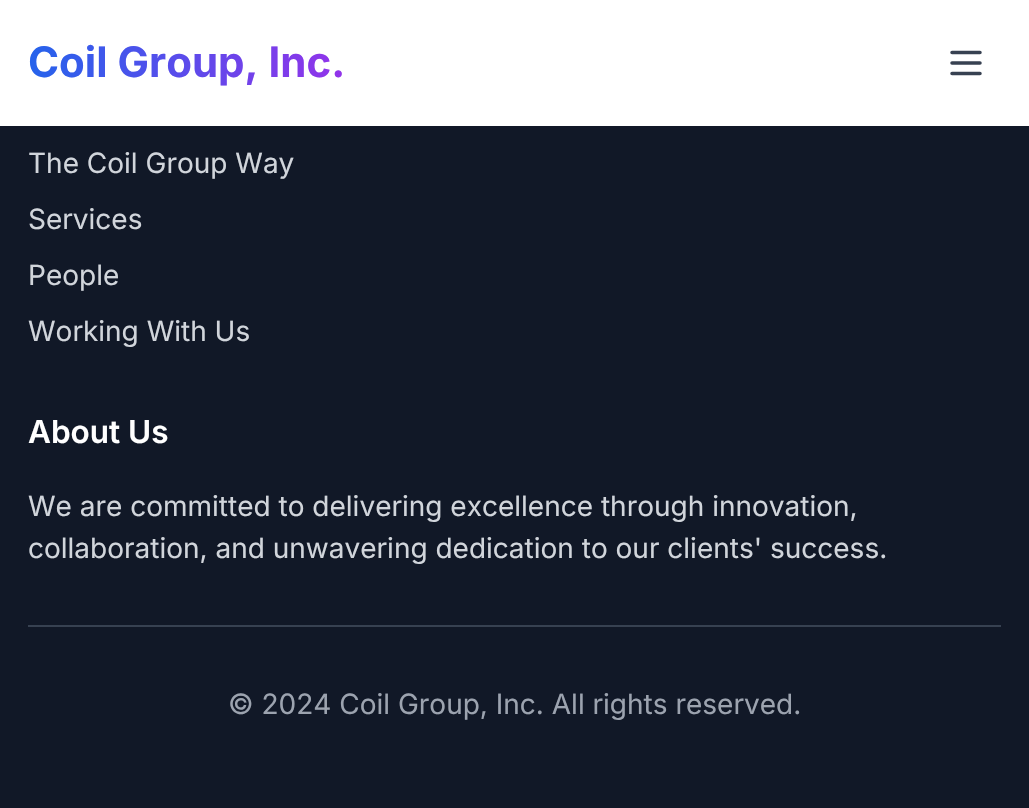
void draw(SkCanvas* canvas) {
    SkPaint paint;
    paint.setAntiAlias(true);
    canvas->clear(0xFF111827);
    paint.setColor(0xFFFFFFFF);
    canvas->drawRect(SkRect::MakeXYWH(0, 0, 1029, 126), paint);
    SkFont font1(fontMgr->matchFamilyStyle("Inter", SkFontStyle::Bold()), 42);
    font1.setSubpixel(true);
    {
        const SkColor colors[] = {0xFF2563EB, 0xFF9333EA};
        const float stops[] = {0, 1};
        const SkPoint ends[] = {{28, 63}, {345, 63}};
        paint.setShader(SkGradientShader::MakeLinear(ends, colors, stops, 2, SkTileMode::kClamp));
        paint.setAlpha(255);
    }
    canvas->drawString("Coil Group, Inc.", 28, 77, font1, paint);
    paint.setStyle(SkPaint::kStroke_Style);
    paint.setStrokeWidth(3.5f);
    paint.setStrokeCap(SkPaint::kRound_Cap);
    paint.setStrokeJoin(SkPaint::kRound_Join);
    paint.setShader(nullptr);
    paint.setColor(0xFF374151);
    canvas->drawPath(SkPathBuilder().moveTo(952, 63).lineTo(980, 63).moveTo(952, 52.5f).lineTo(980, 52.5f).moveTo(952, 73.5f).lineTo(980, 73.5f).detach(), paint);
    SkFont font2(fontMgr->matchFamilyStyle("Inter", SkFontStyle::Normal()), 28);
    font2.setSubpixel(true);
    paint.setStyle(SkPaint::kFill_Style);
    paint.setColor(0xFFD1D5DB);
    canvas->drawString("The Coil Group Way", 28, 173, font2, paint);
    canvas->drawString("Services", 28, 229, font2, paint);
    canvas->drawString("People", 28, 285, font2, paint);
    canvas->drawString("Working With Us", 28, 341, font2, paint);
    SkFont font3(fontMgr->matchFamilyStyle("Inter", SkFontStyle(600, SkFontStyle::kNormal_Width, SkFontStyle::kUpright_Slant)), 31.5f);
    font3.setSubpixel(true);
    paint.setColor(0xFFFFFFFF);
    canvas->drawString("About Us", 28, 443, font3, paint);
    paint.setColor(0xFFD1D5DB);
    canvas->drawString("We are committed to delivering excellence through innovation,", 28, 516, font2, paint);
    canvas->drawString("collaboration, and unwavering dedication to our clients' success.", 28, 558, font2, paint);
    paint.setColor(0xFF374151);
    canvas->drawRect(SkRect::MakeXYWH(28, 625, 973, 2), paint);
    paint.setColor(0xFF9CA3AF);
    canvas->drawString("© 2024 Coil Group, Inc. All rights reserved.", 228, 714, font2, paint);
}
